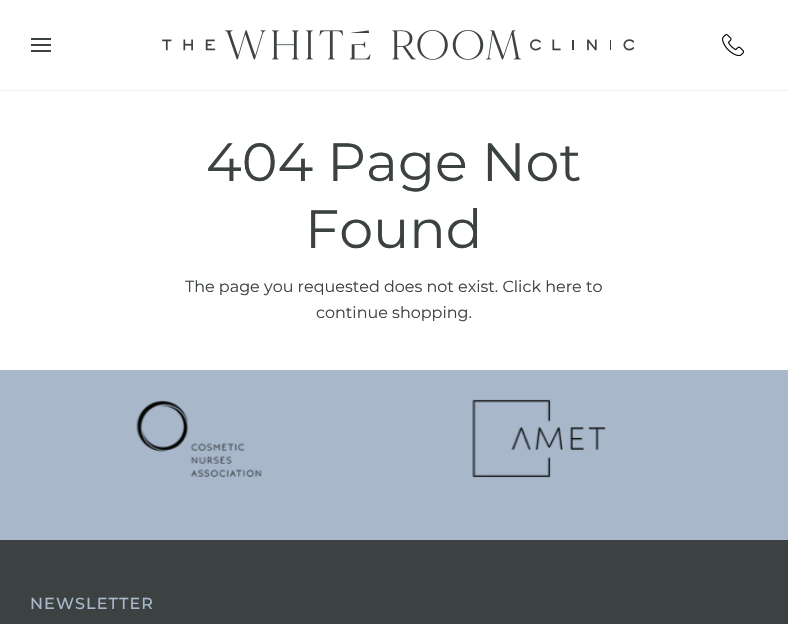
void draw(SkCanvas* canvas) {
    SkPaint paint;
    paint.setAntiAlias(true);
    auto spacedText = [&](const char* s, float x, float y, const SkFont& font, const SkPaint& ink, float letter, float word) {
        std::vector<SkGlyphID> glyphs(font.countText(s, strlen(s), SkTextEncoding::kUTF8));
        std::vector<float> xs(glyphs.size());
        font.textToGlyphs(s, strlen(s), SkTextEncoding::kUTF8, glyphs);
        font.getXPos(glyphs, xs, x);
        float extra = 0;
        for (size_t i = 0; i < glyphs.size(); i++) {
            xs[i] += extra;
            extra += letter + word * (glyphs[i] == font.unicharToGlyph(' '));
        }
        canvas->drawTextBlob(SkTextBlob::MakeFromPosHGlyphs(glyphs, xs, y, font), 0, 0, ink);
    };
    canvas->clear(0xFFFFFFFF);
    paint.setColor(0xFFF8F0E7);
    canvas->drawRect(SkRect::MakeXYWH(0, 90, 788, 1), paint);
    paint.setStyle(SkPaint::kStroke_Style);
    paint.setStrokeWidth(2);
    paint.setStrokeCap(SkPaint::kSquare_Cap);
    paint.setColor(0xFF3C4242);
    canvas->drawPath(SkPathBuilder().moveTo(50, 39).lineTo(32, 39).moveTo(50, 45).lineTo(32, 45).moveTo(50, 51).lineTo(32, 51).detach(), paint);
    canvas->drawImageRect(SkImages::DeferredFromEncodedData(SkData::MakeFromFileName("img1.png")), SkRect::MakeXYWH(162, 30, 472, 30), SkSamplingOptions());
    canvas->drawImageRect(SkImages::DeferredFromEncodedData(SkData::MakeFromFileName("img2.png")), SkRect::MakeXYWH(722, 34, 22, 22), SkSamplingOptions());
    SkFont font1(fontMgr->matchFamilyStyle("Montserrat", SkFontStyle::Normal()), 54);
    font1.setSubpixel(true);
    paint.setStyle(SkPaint::kFill_Style);
    canvas->drawString("404 Page Not", 206, 181, font1, paint);
    canvas->drawString("Found", 305, 248, font1, paint);
    SkFont font2(fontMgr->matchFamilyStyle("Montserrat", SkFontStyle::Normal()), 16);
    font2.setSubpixel(true);
    canvas->drawString("The page you requested does not exist. Click here to", 185, 292, font2, paint);
    canvas->drawString("continue shopping.", 316, 318, font2, paint);
    paint.setColor(0xFFA8B7CA);
    canvas->drawRect(SkRect::MakeXYWH(0, 370, 788, 170), paint);
    canvas->drawImageRect(SkImages::DeferredFromEncodedData(SkData::MakeFromFileName("img3.png")), SkRect::MakeXYWH(136, 400, 126, 77), SkSamplingOptions());
    canvas->drawImageRect(SkImages::DeferredFromEncodedData(SkData::MakeFromFileName("img4.png")), SkRect::MakeXYWH(472, 399, 134, 79), SkSamplingOptions());
    paint.setColor(0xFF3C4242);
    canvas->drawRect(SkRect::MakeXYWH(0, 540, 788, 84), paint);
    SkFont font3(fontMgr->matchFamilyStyle("Montserrat", SkFontStyle(500, SkFontStyle::kNormal_Width, SkFontStyle::kUpright_Slant)), 16);
    font3.setSubpixel(true);
    paint.setColor(0xFFA8B7CA);
    spacedText("NEWSLETTER", 30, 609, font3, paint, 1.1f, 0);
}
